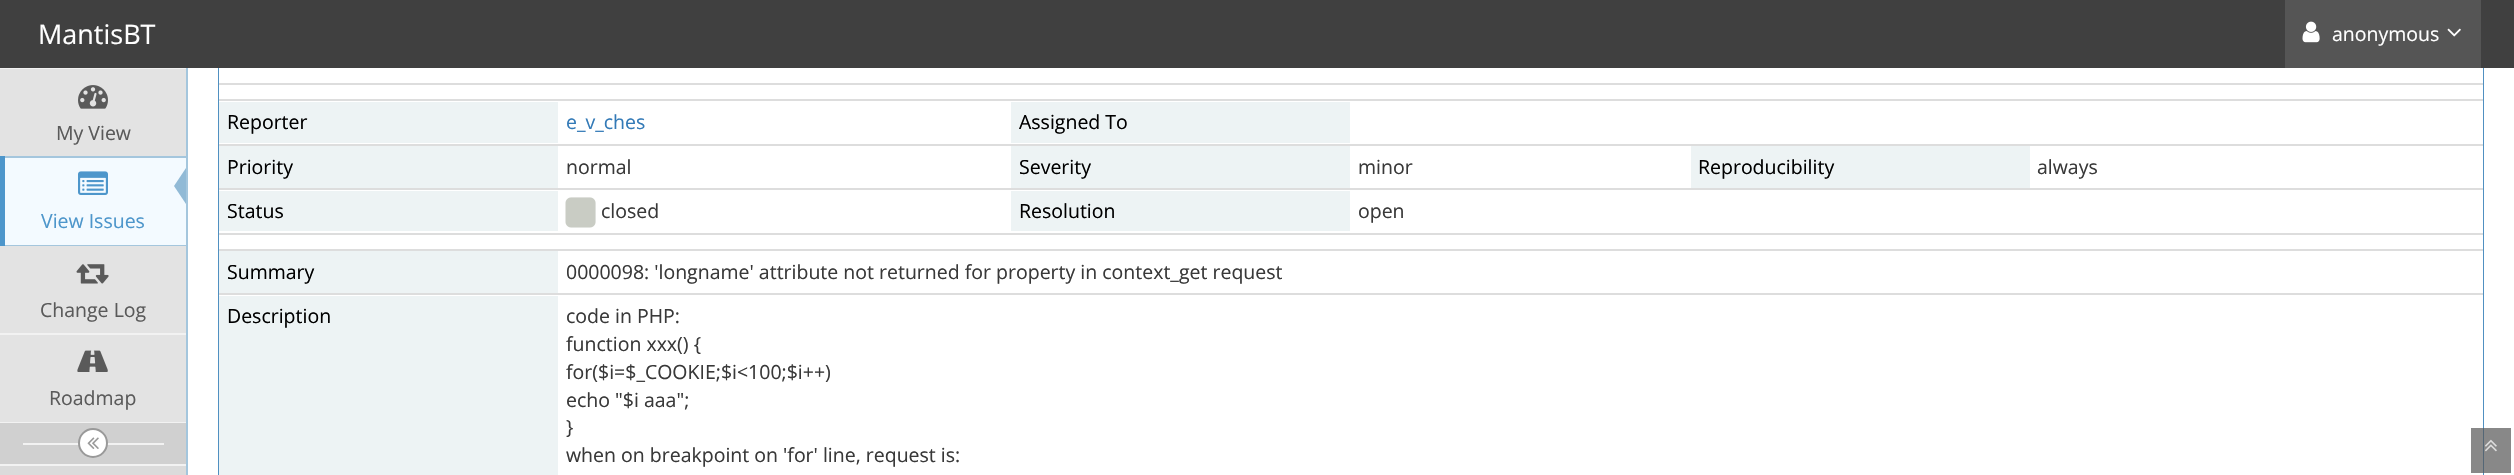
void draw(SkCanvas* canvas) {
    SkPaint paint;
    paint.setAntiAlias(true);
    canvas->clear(0xFFFFFFFF);
    paint.setStyle(SkPaint::kStroke_Style);
    paint.setStrokeWidth(2);
    paint.setColor(0xFF5090C1);
    canvas->drawRect(SkRect::MakeXYWH(219, -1, 2264, 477), paint);
    paint.setStyle(SkPaint::kFill_Style);
    paint.setColor(0xFF404040);
    canvas->drawRect(SkRect::MakeXYWH(0, 0, 2514, 68), paint);
    SkFont font1(fontMgr->matchFamilyStyle("Open Sans", SkFontStyle::Normal()), 27);
    font1.setSubpixel(true);
    paint.setColor(0xFFFFFFFF);
    canvas->drawString("MantisBT", 38, 44, font1, paint);
    paint.setColor(0xFF555555);
    canvas->drawRect(SkRect::MakeXYWH(2285, 0, 196, 68), paint);
    canvas->drawImageRect(SkImages::DeferredFromEncodedData(SkData::MakeFromFileName("img1.png")), SkRect::MakeXYWH(2302, 21, 18, 22), SkSamplingOptions());
    SkFont font2(fontMgr->matchFamilyStyle("Open Sans", SkFontStyle::Normal()), 19.5f);
    font2.setSubpixel(true);
    paint.setColor(0xFFFFFFFF);
    canvas->drawString("anonymous", 2332, 41, font2, paint);
    canvas->drawImageRect(SkImages::DeferredFromEncodedData(SkData::MakeFromFileName("img2.png")), SkRect::MakeXYWH(2447, 28, 14, 9), SkSamplingOptions());
    paint.setColor(0xFFDBDBDB);
    canvas->drawRect(SkRect::MakeXYWH(0, 466, 186, 9), paint);
    paint.setColor(0xFFA4C6DD);
    canvas->drawRect(SkRect::MakeXYWH(186, 68, 2, 407), paint);
    paint.setColor(0xFFF2F2F2);
    canvas->drawRect(SkRect::MakeXYWH(0, 68, 186, 1), paint);
    paint.setColor(0xFFE3E3E3);
    canvas->drawRect(SkRect::MakeXYWH(0, 69, 186, 87), paint);
    canvas->drawImageRect(SkImages::DeferredFromEncodedData(SkData::MakeFromFileName("img3.png")), SkRect::MakeXYWH(78, 85, 30, 24), SkSamplingOptions());
    paint.setColor(0xFF5A5A5A);
    canvas->drawString("My View", 56, 140, font2, paint);
    paint.setColor(0xFFA4C6DD);
    canvas->drawRect(SkRect::MakeXYWH(0, 156, 186, 2), paint);
    canvas->drawRect(SkRect::MakeXYWH(0, 245, 186, 1), paint);
    paint.setColor(0xFF4D96CB);
    canvas->drawRect(SkRect::MakeXYWH(0, 156, 5, 90), paint);
    paint.setColor(0xFFF3FAFF);
    canvas->drawRect(SkRect::MakeXYWH(5, 158, 181, 87), paint);
    canvas->drawImageRect(SkImages::DeferredFromEncodedData(SkData::MakeFromFileName("img4.png")), SkRect::MakeXYWH(78, 171, 30, 24), SkSamplingOptions());
    paint.setColor(0xFF91BAD6);
    canvas->drawPath(SkPathBuilder().moveTo(186, 168).lineTo(186, 204).lineTo(174, 186).close().detach(), paint);
    paint.setColor(0xFF4D96CB);
    canvas->drawString("View Issues", 41, 228, font2, paint);
    paint.setColor(0xFFE3E3E3);
    canvas->drawRect(SkRect::MakeXYWH(0, 246, 186, 87), paint);
    canvas->drawImageRect(SkImages::DeferredFromEncodedData(SkData::MakeFromFileName("img5.png")), SkRect::MakeXYWH(76, 264, 33, 20), SkSamplingOptions());
    paint.setColor(0xFF5A5A5A);
    canvas->drawString("Change Log", 40, 317, font2, paint);
    paint.setColor(0xFFF2F2F2);
    canvas->drawRect(SkRect::MakeXYWH(0, 333, 186, 2), paint);
    canvas->drawRect(SkRect::MakeXYWH(0, 422, 186, 1), paint);
    paint.setColor(0xFFE3E3E3);
    canvas->drawRect(SkRect::MakeXYWH(0, 335, 186, 87), paint);
    canvas->drawImageRect(SkImages::DeferredFromEncodedData(SkData::MakeFromFileName("img6.png")), SkRect::MakeXYWH(77, 350, 31, 22), SkSamplingOptions());
    paint.setColor(0xFF5A5A5A);
    canvas->drawString("Roadmap", 49, 405, font2, paint);
    paint.setColor(0xFFD0D0D0);
    canvas->drawRect(SkRect::MakeXYWH(0, 423, 186, 41), paint);
    paint.setColor(0xFFF2F2F2);
    canvas->drawRect(SkRect::MakeXYWH(0, 464, 186, 2), paint);
    canvas->drawRect(SkRect::MakeXYWH(23, 443, 141, 2), paint);
    paint.setColor(0xFFFFFFFF);
    canvas->drawCircle(93, 443, 14, paint);
    paint.setStyle(SkPaint::kStroke_Style);
    paint.setColor(0xFF999999);
    canvas->drawCircle(93, 443, 14, paint);
    canvas->drawImageRect(SkImages::DeferredFromEncodedData(SkData::MakeFromFileName("img7.png")), SkRect::MakeXYWH(87, 437, 12, 12), SkSamplingOptions());
    paint.setStyle(SkPaint::kFill_Style);
    paint.setColor(0xFFFFFFFF);
    canvas->drawRect(SkRect::MakeXYWH(219, 68, 2264, 407), paint);
    paint.setColor(0xFFDDDDDD);
    canvas->drawRect(SkRect::MakeXYWH(219, 83, 2264, 2), paint);
    canvas->drawRect(SkRect::MakeXYWH(219, 99, 2264, 2), paint);
    paint.setColor(0xFFEDF3F4);
    canvas->drawRect(SkRect::MakeXYWH(219, 102, 339, 41), paint);
    paint.setColor(0xFF000000);
    canvas->drawString("Reporter", 227, 129, font2, paint);
    paint.setColor(0xFF337AB7);
    canvas->drawString("e_v_ches", 566, 129, font2, paint);
    paint.setColor(0xFFEDF3F4);
    canvas->drawRect(SkRect::MakeXYWH(1011, 102, 339, 41), paint);
    paint.setColor(0xFF000000);
    canvas->drawString("Assigned To", 1019, 129, font2, paint);
    paint.setColor(0xFFEDF3F4);
    canvas->drawRect(SkRect::MakeXYWH(219, 146, 339, 42), paint);
    paint.setColor(0xFF000000);
    canvas->drawString("Priority", 227, 174, font2, paint);
    paint.setColor(0xFF393939);
    canvas->drawString("normal", 566, 174, font2, paint);
    paint.setColor(0xFFEDF3F4);
    canvas->drawRect(SkRect::MakeXYWH(1011, 146, 339, 42), paint);
    paint.setColor(0xFF000000);
    canvas->drawString("Severity", 1019, 174, font2, paint);
    paint.setColor(0xFF393939);
    canvas->drawString("minor", 1358, 174, font2, paint);
    paint.setColor(0xFFEDF3F4);
    canvas->drawRect(SkRect::MakeXYWH(1691, 146, 339, 42), paint);
    paint.setColor(0xFF000000);
    canvas->drawString("Reproducibility", 1698, 174, font2, paint);
    paint.setColor(0xFFDDDDDD);
    canvas->drawRect(SkRect::MakeXYWH(219, 144, 2264, 2), paint);
    paint.setColor(0xFF393939);
    canvas->drawString("always", 2037, 174, font2, paint);
    paint.setColor(0xFFDDDDDD);
    canvas->drawRect(SkRect::MakeXYWH(219, 188, 2264, 2), paint);
    paint.setColor(0xFFEDF3F4);
    canvas->drawRect(SkRect::MakeXYWH(219, 191, 339, 40), paint);
    paint.setColor(0xFF000000);
    canvas->drawString("Status", 227, 218, font2, paint);
    canvas->drawImageRect(SkImages::DeferredFromEncodedData(SkData::MakeFromFileName("img8.png")), SkRect::MakeXYWH(565, 197, 31, 31), SkSamplingOptions());
    paint.setColor(0xFF393939);
    canvas->drawString("closed", 601, 218, font2, paint);
    paint.setColor(0xFFEDF3F4);
    canvas->drawRect(SkRect::MakeXYWH(1011, 191, 339, 40), paint);
    paint.setColor(0xFF000000);
    canvas->drawString("Resolution", 1019, 218, font2, paint);
    paint.setColor(0xFF393939);
    canvas->drawString("open", 1358, 218, font2, paint);
    paint.setColor(0xFFDDDDDD);
    canvas->drawRect(SkRect::MakeXYWH(219, 233, 2264, 2), paint);
    paint.setColor(0xFFEDF3F4);
    canvas->drawRect(SkRect::MakeXYWH(219, 251, 339, 42), paint);
    paint.setColor(0xFF000000);
    canvas->drawString("Summary", 227, 279, font2, paint);
    paint.setColor(0xFFDDDDDD);
    canvas->drawRect(SkRect::MakeXYWH(219, 249, 2264, 2), paint);
    paint.setColor(0xFF393939);
    canvas->drawString("0000098: 'longname' attribute not returned for property in context_get request", 566, 279, font2, paint);
    paint.setColor(0xFFEDF3F4);
    canvas->drawRect(SkRect::MakeXYWH(219, 296, 339, 179), paint);
    paint.setColor(0xFF000000);
    canvas->drawString("Description", 227, 323, font2, paint);
    paint.setColor(0xFFDDDDDD);
    canvas->drawRect(SkRect::MakeXYWH(219, 293, 2264, 2), paint);
    paint.setColor(0xFF393939);
    canvas->drawString("code in PHP:", 566, 323, font2, paint);
    canvas->drawString("function xxx() {", 566, 351, font2, paint);
    canvas->drawString("for($i=$_COOKIE;$i<100;$i++)", 566, 379, font2, paint);
    canvas->drawString("echo \"$i aaa\";", 566, 407, font2, paint);
    canvas->drawString("}", 566, 434, font2, paint);
    canvas->drawString("when on breakpoint on 'for' line, request is:", 566, 462, font2, paint);
    paint.setColor(0xB3555555);
    canvas->drawRect(SkRect::MakeXYWH(2471, 428, 40, 45), paint);
    canvas->drawImageRect(SkImages::DeferredFromEncodedData(SkData::MakeFromFileName("img9.png")), SkRect::MakeXYWH(2485, 439, 12, 13), SkSamplingOptions());
}
